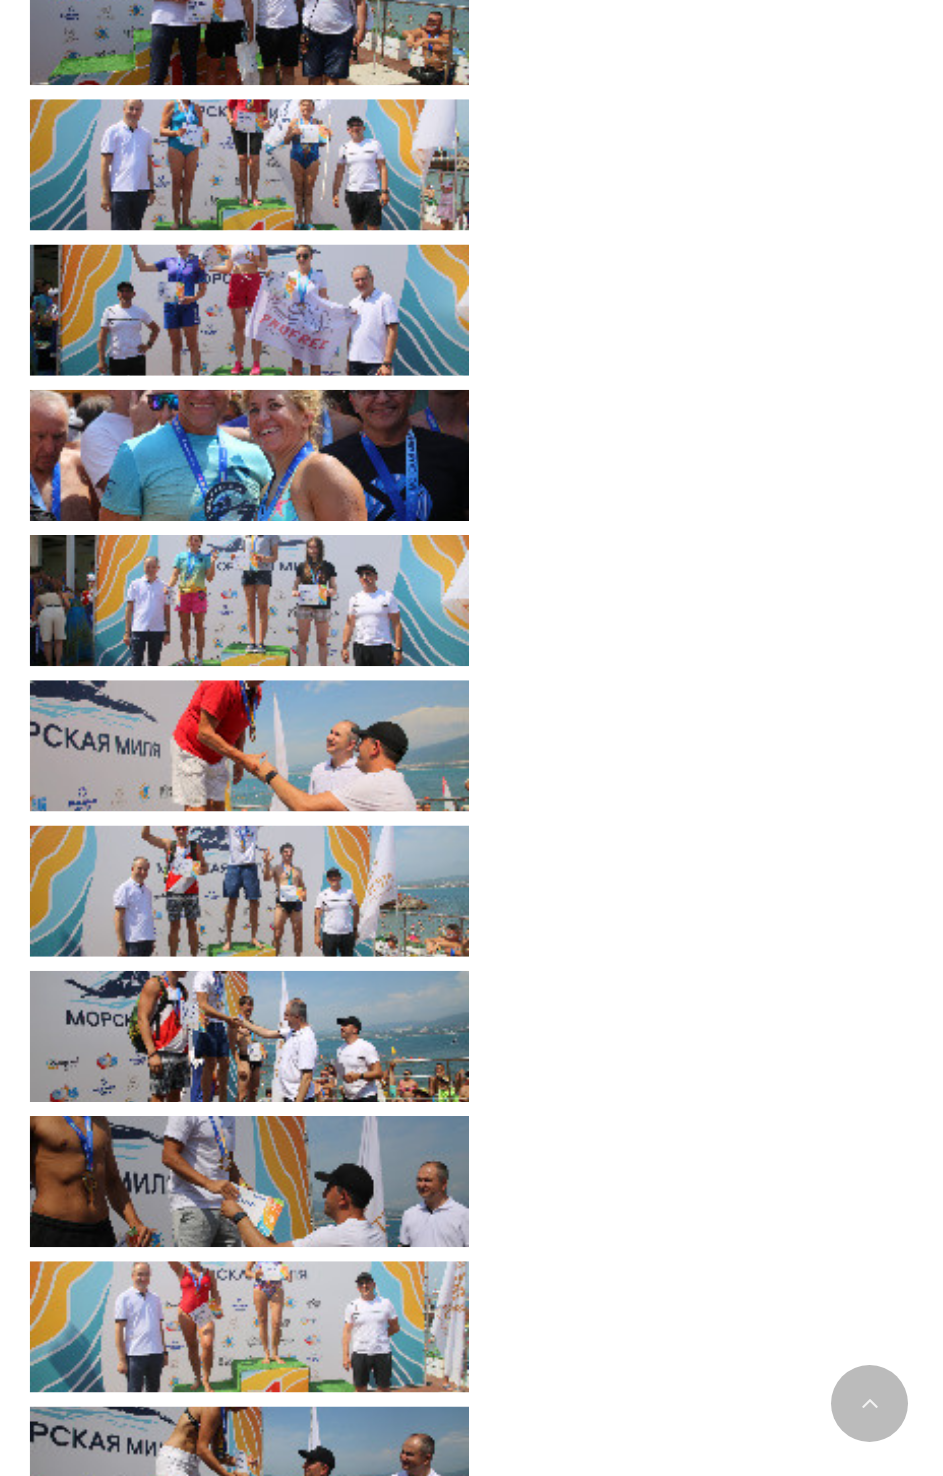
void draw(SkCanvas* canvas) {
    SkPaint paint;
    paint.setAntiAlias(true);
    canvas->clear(0xFFFFFFFF);
    canvas->drawImageRect(SkImages::DeferredFromEncodedData(SkData::MakeFromFileName("img1.png")), SkRect::MakeXYWH(29, 0, 440, 86), SkSamplingOptions());
    canvas->drawImageRect(SkImages::DeferredFromEncodedData(SkData::MakeFromFileName("img2.png")), SkRect::MakeXYWH(29, 99, 440, 132), SkSamplingOptions());
    canvas->drawImageRect(SkImages::DeferredFromEncodedData(SkData::MakeFromFileName("img3.png")), SkRect::MakeXYWH(29, 244, 440, 132), SkSamplingOptions());
    canvas->drawImageRect(SkImages::DeferredFromEncodedData(SkData::MakeFromFileName("img4.png")), SkRect::MakeXYWH(29, 389, 440, 132), SkSamplingOptions());
    canvas->drawImageRect(SkImages::DeferredFromEncodedData(SkData::MakeFromFileName("img5.png")), SkRect::MakeXYWH(29, 535, 440, 132), SkSamplingOptions());
    canvas->drawImageRect(SkImages::DeferredFromEncodedData(SkData::MakeFromFileName("img6.png")), SkRect::MakeXYWH(29, 680, 440, 132), SkSamplingOptions());
    canvas->drawImageRect(SkImages::DeferredFromEncodedData(SkData::MakeFromFileName("img7.png")), SkRect::MakeXYWH(29, 825, 440, 132), SkSamplingOptions());
    canvas->drawImageRect(SkImages::DeferredFromEncodedData(SkData::MakeFromFileName("img8.png")), SkRect::MakeXYWH(29, 970, 440, 132), SkSamplingOptions());
    canvas->drawImageRect(SkImages::DeferredFromEncodedData(SkData::MakeFromFileName("img9.png")), SkRect::MakeXYWH(29, 1116, 440, 132), SkSamplingOptions());
    canvas->drawImageRect(SkImages::DeferredFromEncodedData(SkData::MakeFromFileName("img10.png")), SkRect::MakeXYWH(29, 1261, 440, 132), SkSamplingOptions());
    canvas->drawImageRect(SkImages::DeferredFromEncodedData(SkData::MakeFromFileName("img11.png")), SkRect::MakeXYWH(29, 1406, 440, 70), SkSamplingOptions());
    paint.setColor(0xFFBBBBBB);
    canvas->drawCircle(869.5f, 1403.5f, 38.5f, paint);
    canvas->drawImageRect(SkImages::DeferredFromEncodedData(SkData::MakeFromFileName("img12.png")), SkRect::MakeXYWH(862, 1399, 16, 9), SkSamplingOptions());
}
